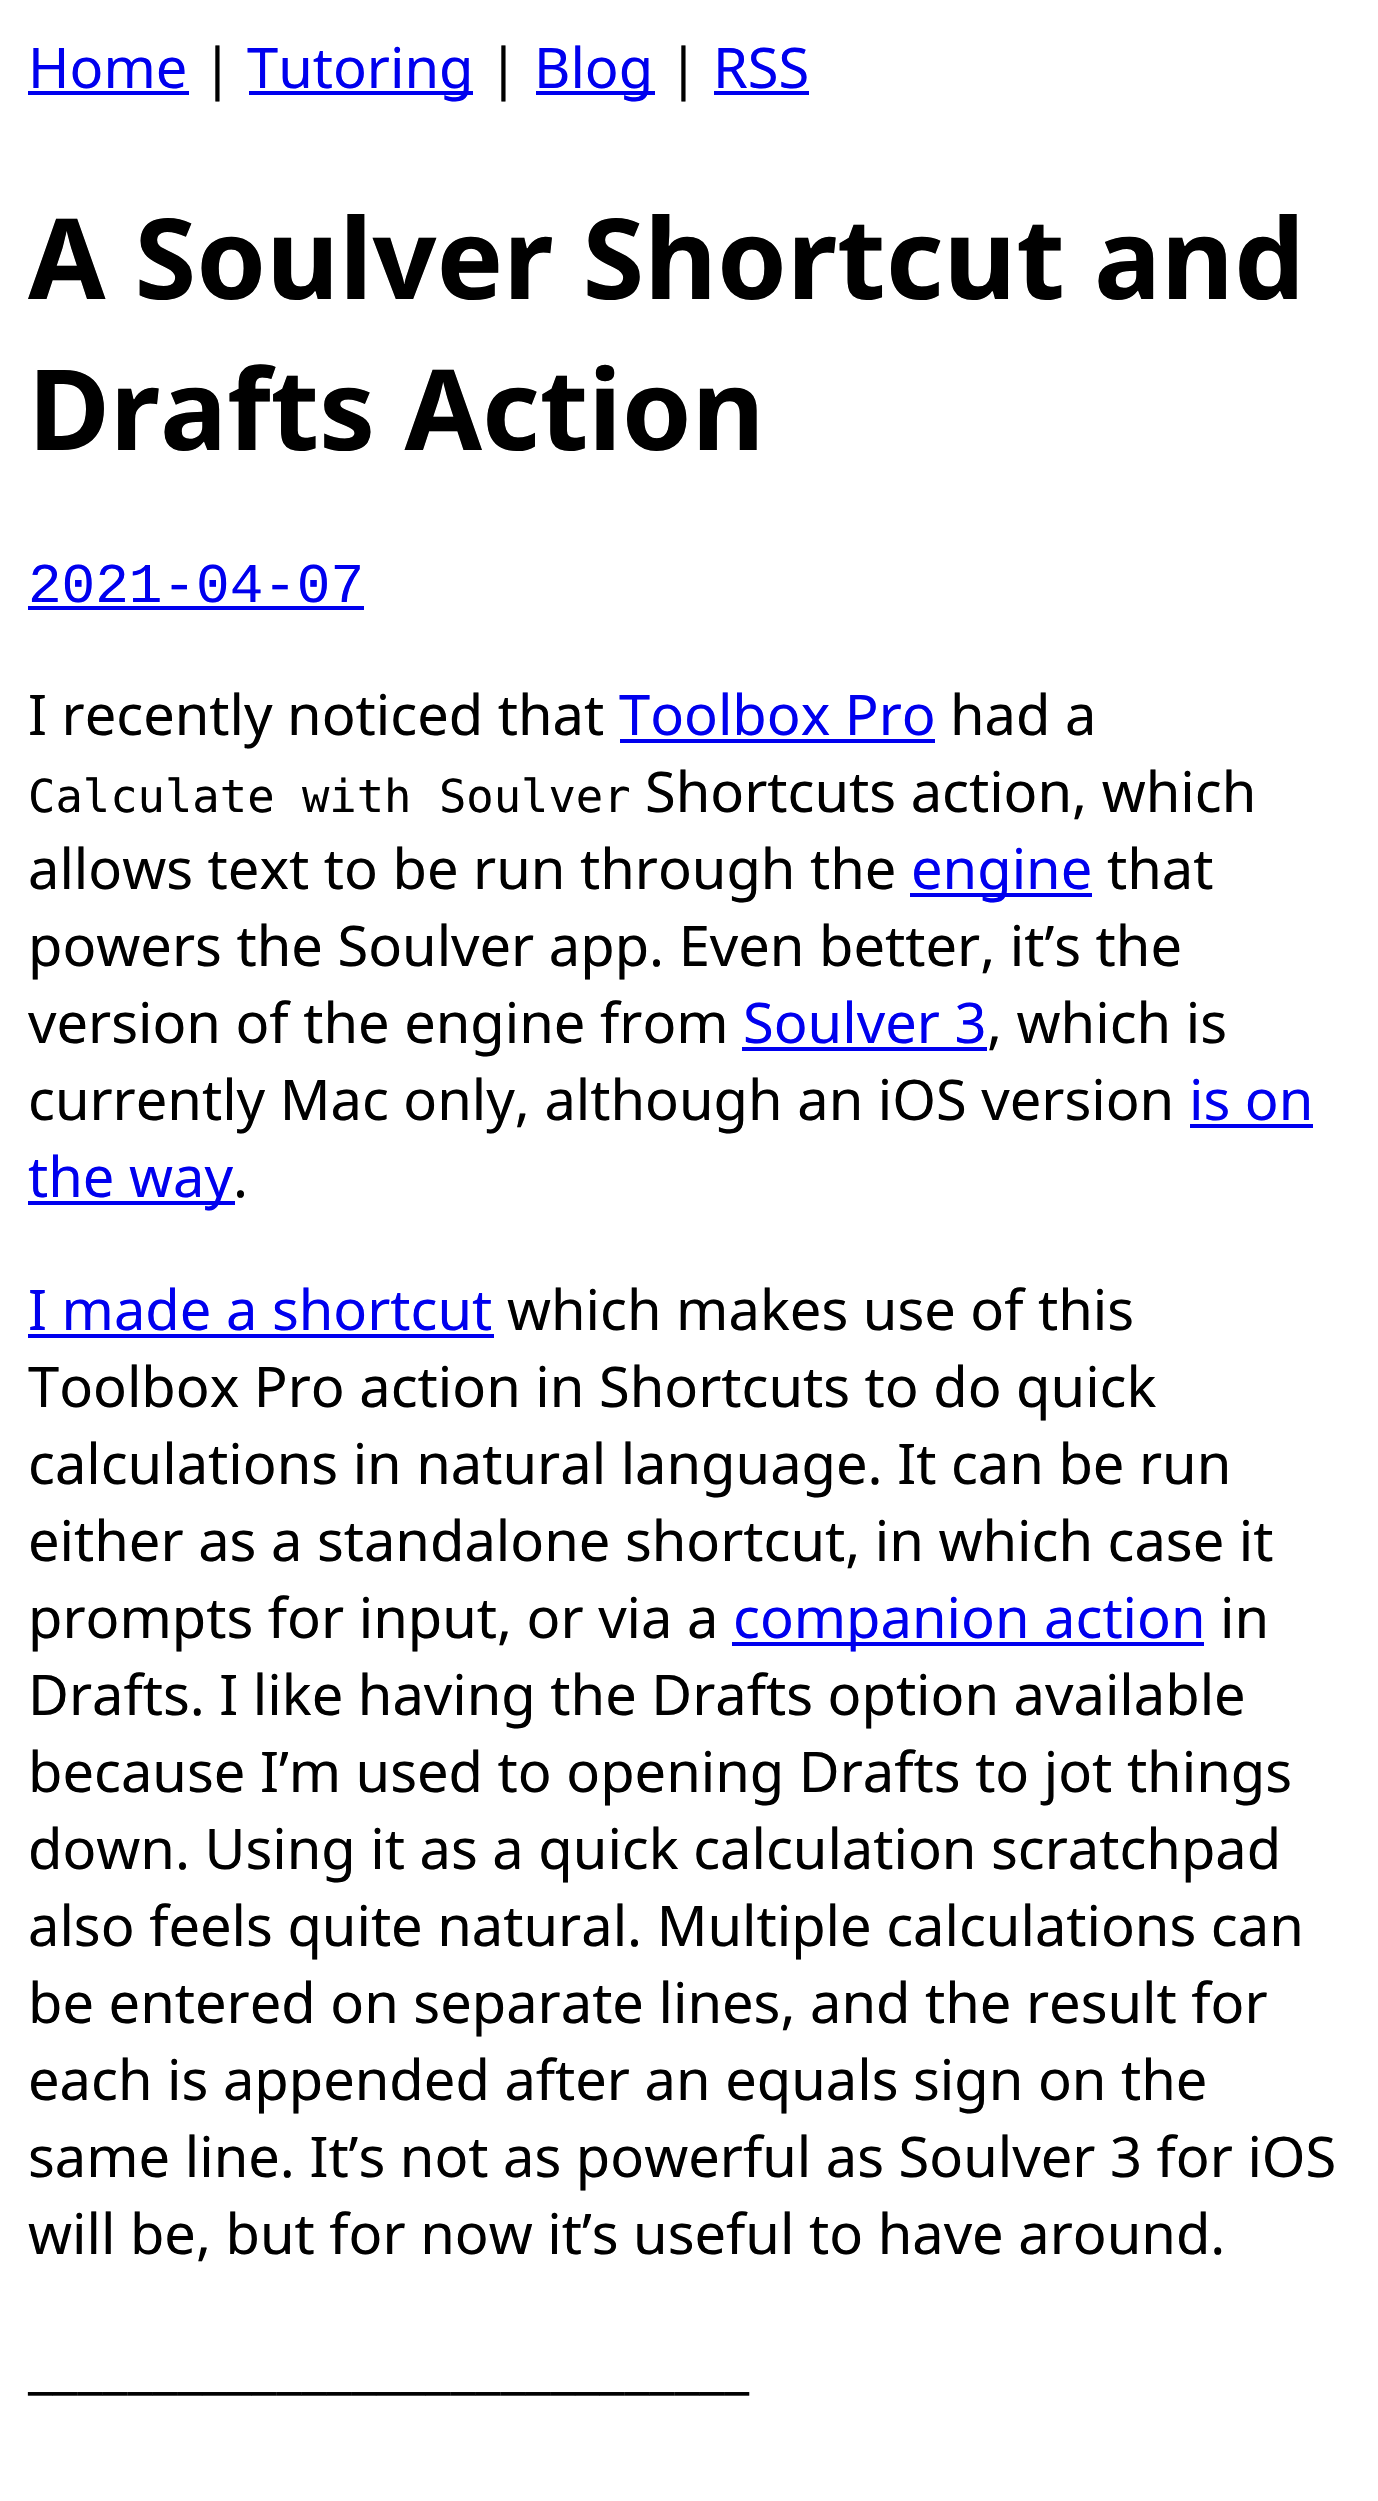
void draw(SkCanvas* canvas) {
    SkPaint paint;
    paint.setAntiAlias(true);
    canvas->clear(0xFFFFFFFF);
    SkFont font1(fontMgr->matchFamilyStyle("Noto Sans", SkFontStyle::Normal()), 56);
    font1.setSubpixel(true);
    paint.setColor(0xFF0000EE);
    canvas->drawString("Home", 28, 88, font1, paint);
    canvas->drawRect(SkRect::MakeXYWH(28, 91, 161, 4), paint);
    paint.setColor(0xFF000000);
    canvas->drawString("|", 202, 88, font1, paint);
    paint.setColor(0xFF0000EE);
    canvas->drawRect(SkRect::MakeXYWH(249, 91, 224, 4), paint);
    canvas->drawString("Tutoring", 247, 88, font1, paint);
    paint.setColor(0xFF000000);
    canvas->drawString("|", 488, 88, font1, paint);
    paint.setColor(0xFF0000EE);
    canvas->drawRect(SkRect::MakeXYWH(536, 91, 119, 4), paint);
    canvas->drawString("Blog", 534, 88, font1, paint);
    paint.setColor(0xFF000000);
    canvas->drawString("|", 668, 88, font1, paint);
    paint.setColor(0xFF0000EE);
    canvas->drawString("RSS", 713, 88, font1, paint);
    canvas->drawRect(SkRect::MakeXYWH(714, 91, 95, 4), paint);
    SkFont font2(fontMgr->matchFamilyStyle("Noto Sans", SkFontStyle::Bold()), 112);
    font2.setSubpixel(true);
    paint.setColor(0xFF000000);
    canvas->drawString("A Soulver Shortcut and", 28, 299, font2, paint);
    canvas->drawString("Drafts Action", 28, 450, font2, paint);
    SkFont font3(fontMgr->matchFamilyStyle("Liberation Mono", SkFontStyle::Normal()), 56);
    font3.setSubpixel(true);
    paint.setColor(0xFF0000EE);
    canvas->drawString("2021-04-07", 28, 602, font3, paint);
    canvas->drawRect(SkRect::MakeXYWH(28, 606, 336, 4), paint);
    paint.setColor(0xFF000000);
    canvas->drawString("I recently noticed that", 28, 735, font1, paint);
    paint.setColor(0xFF0000EE);
    canvas->drawString("Toolbox Pro", 619, 735, font1, paint);
    canvas->drawRect(SkRect::MakeXYWH(620, 739, 315, 4), paint);
    paint.setColor(0xFF000000);
    canvas->drawString("had a", 950, 735, font1, paint);
    SkFont font4(fontMgr->matchFamilyStyle("DejaVu Sans Mono", SkFontStyle::Normal()), 45.5f);
    font4.setSubpixel(true);
    canvas->drawString("Calculate with Soulver", 28, 812, font4, paint);
    canvas->drawString("Shortcuts action, which", 645, 812, font1, paint);
    canvas->drawString("allows text to be run through the", 28, 889, font1, paint);
    paint.setColor(0xFF0000EE);
    canvas->drawRect(SkRect::MakeXYWH(910, 893, 182, 4), paint);
    canvas->drawString("engine", 911, 889, font1, paint);
    paint.setColor(0xFF000000);
    canvas->drawString("that", 1107, 889, font1, paint);
    canvas->drawString("powers the Soulver app. Even better, it’s the", 28, 966, font1, paint);
    canvas->drawString("version of the engine from", 28, 1043, font1, paint);
    paint.setColor(0xFF0000EE);
    canvas->drawString("Soulver 3", 743, 1043, font1, paint);
    canvas->drawRect(SkRect::MakeXYWH(742, 1047, 245, 4), paint);
    paint.setColor(0xFF000000);
    canvas->drawString(", which is", 987, 1043, font1, paint);
    canvas->drawString("currently Mac only, although an iOS version", 28, 1120, font1, paint);
    paint.setColor(0xFF0000EE);
    canvas->drawString("is on", 1189, 1120, font1, paint);
    canvas->drawRect(SkRect::MakeXYWH(1190, 1124, 123, 4), paint);
    canvas->drawRect(SkRect::MakeXYWH(28, 1201, 207, 4), paint);
    canvas->drawString("the way", 28, 1197, font1, paint);
    paint.setColor(0xFF000000);
    canvas->drawString(".", 233, 1197, font1, paint);
    paint.setColor(0xFF0000EE);
    canvas->drawString("I made a shortcut", 28, 1330, font1, paint);
    canvas->drawRect(SkRect::MakeXYWH(28, 1334, 466, 4), paint);
    paint.setColor(0xFF000000);
    canvas->drawString("which makes use of this", 507, 1330, font1, paint);
    canvas->drawString("Toolbox Pro action in Shortcuts to do quick", 28, 1407, font1, paint);
    canvas->drawString("calculations in natural language. It can be run", 28, 1484, font1, paint);
    canvas->drawString("either as a standalone shortcut, in which case it", 28, 1561, font1, paint);
    canvas->drawString("prompts for input, or via a", 28, 1638, font1, paint);
    paint.setColor(0xFF0000EE);
    canvas->drawRect(SkRect::MakeXYWH(732, 1642, 472, 4), paint);
    canvas->drawString("companion action", 733, 1638, font1, paint);
    paint.setColor(0xFF000000);
    canvas->drawString("in", 1220, 1638, font1, paint);
    canvas->drawString("Drafts. I like having the Drafts option available", 28, 1715, font1, paint);
    canvas->drawString("because I’m used to opening Drafts to jot things", 28, 1792, font1, paint);
    canvas->drawString("down. Using it as a quick calculation scratchpad", 28, 1869, font1, paint);
    canvas->drawString("also feels quite natural. Multiple calculations can", 28, 1946, font1, paint);
    canvas->drawString("be entered on separate lines, and the result for", 28, 2023, font1, paint);
    canvas->drawString("each is appended after an equals sign on the", 28, 2100, font1, paint);
    canvas->drawString("same line. It’s not as powerful as Soulver 3 for iOS", 28, 2177, font1, paint);
    canvas->drawString("will be, but for now it’s useful to have around.", 28, 2254, font1, paint);
    canvas->drawString("_____________________________", 28, 2387, font1, paint);
}
